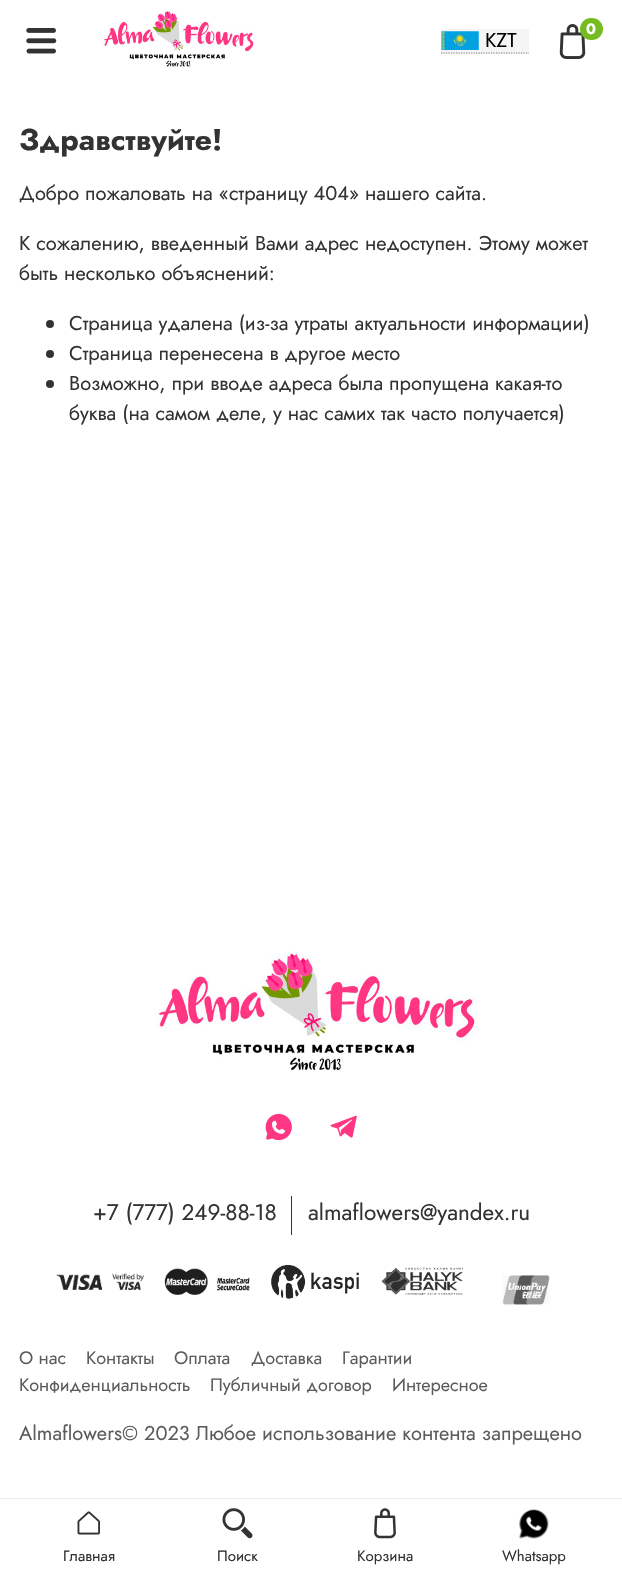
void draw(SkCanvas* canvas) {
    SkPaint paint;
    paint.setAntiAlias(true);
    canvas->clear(0xFFFFFFFF);
    canvas->drawImageRect(SkImages::DeferredFromEncodedData(SkData::MakeFromFileName("img1.png")), SkRect::MakeXYWH(26, 28, 31, 26), SkSamplingOptions());
    canvas->drawImageRect(SkImages::DeferredFromEncodedData(SkData::MakeFromFileName("img2.png")), SkRect::MakeXYWH(102, 10, 153, 57), SkSamplingOptions());
    paint.setColor(0xFFF5F5F5);
    canvas->drawRect(SkRect::MakeXYWH(441, 29, 88, 25), paint);
    paint.setStyle(SkPaint::kStroke_Style);
    paint.setStrokeWidth(1.2f);
    paint.setColor(0xFF808080);
    paint.setPathEffect(SkDashPathEffect::Make({{1.25f, 1.25f}}, 0));
    canvas->drawPath(SkPathBuilder().moveTo(441, 53).lineTo(529, 53).detach(), paint);
    paint.setPathEffect(nullptr);
    canvas->drawImageRect(SkImages::DeferredFromEncodedData(SkData::MakeFromFileName("img3.png")), SkRect::MakeXYWH(441, 31, 38, 19), SkSamplingOptions());
    SkFont font1(fontMgr->matchFamilyStyle("Jost", SkFontStyle::Normal()), 20);
    font1.setSubpixel(true);
    paint.setStyle(SkPaint::kFill_Style);
    paint.setColor(0xFF000000);
    canvas->drawString("KZT", 485, 47, font1, paint);
    canvas->drawImageRect(SkImages::DeferredFromEncodedData(SkData::MakeFromFileName("img4.png")), SkRect::MakeXYWH(559, 24, 27, 35), SkSamplingOptions());
    paint.setColor(0xFF76BC21);
    canvas->drawRoundRect(SkRect::MakeXYWH(580, 18, 23, 22), 11, 11, paint);
    SkFont font2(fontMgr->matchFamilyStyle("Jost", SkFontStyle::Bold()), 15);
    font2.setSubpixel(true);
    paint.setColor(0xFFFFFFFF);
    canvas->drawString("0", 586, 34, font2, paint);
    SkFont font3(fontMgr->matchFamilyStyle("Jost", SkFontStyle::Bold()), 30);
    font3.setSubpixel(true);
    paint.setColor(0xFF333333);
    canvas->drawString("Здравствуйте!", 19, 150, font3, paint);
    canvas->drawString("Добро пожаловать на «страницу 404» нашего сайта.", 19, 200, font1, paint);
    canvas->drawString("К сожалению, введенный Вами адрес недоступен. Этому может", 19, 250, font1, paint);
    canvas->drawString("быть несколько объяснений:", 19, 280, font1, paint);
    canvas->drawCircle(50, 324, 4, paint);
    canvas->drawString("Страница удалена (из-за утраты актуальности информации)", 69, 330, font1, paint);
    canvas->drawCircle(50, 354, 4, paint);
    canvas->drawString("Страница перенесена в другое место", 69, 360, font1, paint);
    canvas->drawCircle(50, 384, 4, paint);
    canvas->drawString("Возможно, при вводе адреса была пропущена какая-то", 69, 390, font1, paint);
    canvas->drawString("буква (на самом деле, у нас самих так часто получается)", 69, 420, font1, paint);
    canvas->drawImageRect(SkImages::DeferredFromEncodedData(SkData::MakeFromFileName("img5.png")), SkRect::MakeXYWH(155, 951, 322, 120), SkSamplingOptions());
    canvas->drawImageRect(SkImages::DeferredFromEncodedData(SkData::MakeFromFileName("img6.png")), SkRect::MakeXYWH(265, 1113, 27, 28), SkSamplingOptions());
    canvas->drawImageRect(SkImages::DeferredFromEncodedData(SkData::MakeFromFileName("img7.png")), SkRect::MakeXYWH(330, 1115, 27, 23), SkSamplingOptions());
    SkFont font4(fontMgr->matchFamilyStyle("Jost", SkFontStyle::Normal()), 22.5f);
    font4.setSubpixel(true);
    canvas->drawString("+7 (777) 249-88-18", 93, 1220, font4, paint);
    canvas->drawRect(SkRect::MakeXYWH(291, 1196, 1, 39), paint);
    canvas->drawString("almaflowers@yandex.ru", 308, 1220, font4, paint);
    canvas->drawImageRect(SkImages::DeferredFromEncodedData(SkData::MakeFromFileName("img8.png")), SkRect::MakeXYWH(56, 1273, 88, 17), SkSamplingOptions());
    canvas->drawImageRect(SkImages::DeferredFromEncodedData(SkData::MakeFromFileName("img9.png")), SkRect::MakeXYWH(164, 1268, 86, 27), SkSamplingOptions());
    canvas->drawImageRect(SkImages::DeferredFromEncodedData(SkData::MakeFromFileName("img10.png")), SkRect::MakeXYWH(271, 1265, 88, 34), SkSamplingOptions());
    canvas->drawImageRect(SkImages::DeferredFromEncodedData(SkData::MakeFromFileName("img11.png")), SkRect::MakeXYWH(381, 1267, 82, 28), SkSamplingOptions());
    canvas->drawImageRect(SkImages::DeferredFromEncodedData(SkData::MakeFromFileName("img12.png")), SkRect::MakeXYWH(502, 1275, 48, 30), SkSamplingOptions());
    SkFont font5(fontMgr->matchFamilyStyle("Jost", SkFontStyle::Normal()), 18);
    font5.setSubpixel(true);
    paint.setColor(0xFF5C5C5C);
    canvas->drawString("О нас", 19, 1364, font5, paint);
    canvas->drawString("Контакты", 86, 1364, font5, paint);
    canvas->drawString("Оплата", 174, 1364, font5, paint);
    canvas->drawString("Доставка", 251, 1364, font5, paint);
    canvas->drawString("Гарантии", 342, 1364, font5, paint);
    canvas->drawString("Конфиденциальность", 19, 1391, font5, paint);
    canvas->drawString("Публичный договор", 210, 1391, font5, paint);
    canvas->drawString("Интересное", 392, 1391, font5, paint);
    canvas->drawString("Almaflowers© 2023 Любое использование контента запрещено", 19, 1440, font1, paint);
    paint.setColor(0xFFEDEDED);
    canvas->drawRect(SkRect::MakeXYWH(0, 1498, 622, 1), paint);
    canvas->drawImageRect(SkImages::DeferredFromEncodedData(SkData::MakeFromFileName("img13.png")), SkRect::MakeXYWH(77, 1511, 23, 24), SkSamplingOptions());
    SkFont font6(fontMgr->matchFamilyStyle("Jost", SkFontStyle::Normal()), 15);
    font6.setSubpixel(true);
    paint.setColor(0xFF333333);
    canvas->drawString("Главная", 63, 1561, font6, paint);
    canvas->drawImageRect(SkImages::DeferredFromEncodedData(SkData::MakeFromFileName("img14.png")), SkRect::MakeXYWH(222, 1508, 31, 31), SkSamplingOptions());
    canvas->drawString("Поиск", 217, 1561, font6, paint);
    canvas->drawImageRect(SkImages::DeferredFromEncodedData(SkData::MakeFromFileName("img15.png")), SkRect::MakeXYWH(374, 1508, 22, 31), SkSamplingOptions());
    canvas->drawString("Корзина", 357, 1561, font6, paint);
    canvas->drawImageRect(SkImages::DeferredFromEncodedData(SkData::MakeFromFileName("img16.png")), SkRect::MakeXYWH(519, 1509, 30, 30), SkSamplingOptions());
    canvas->drawString("Whatsapp", 502, 1561, font6, paint);
}
